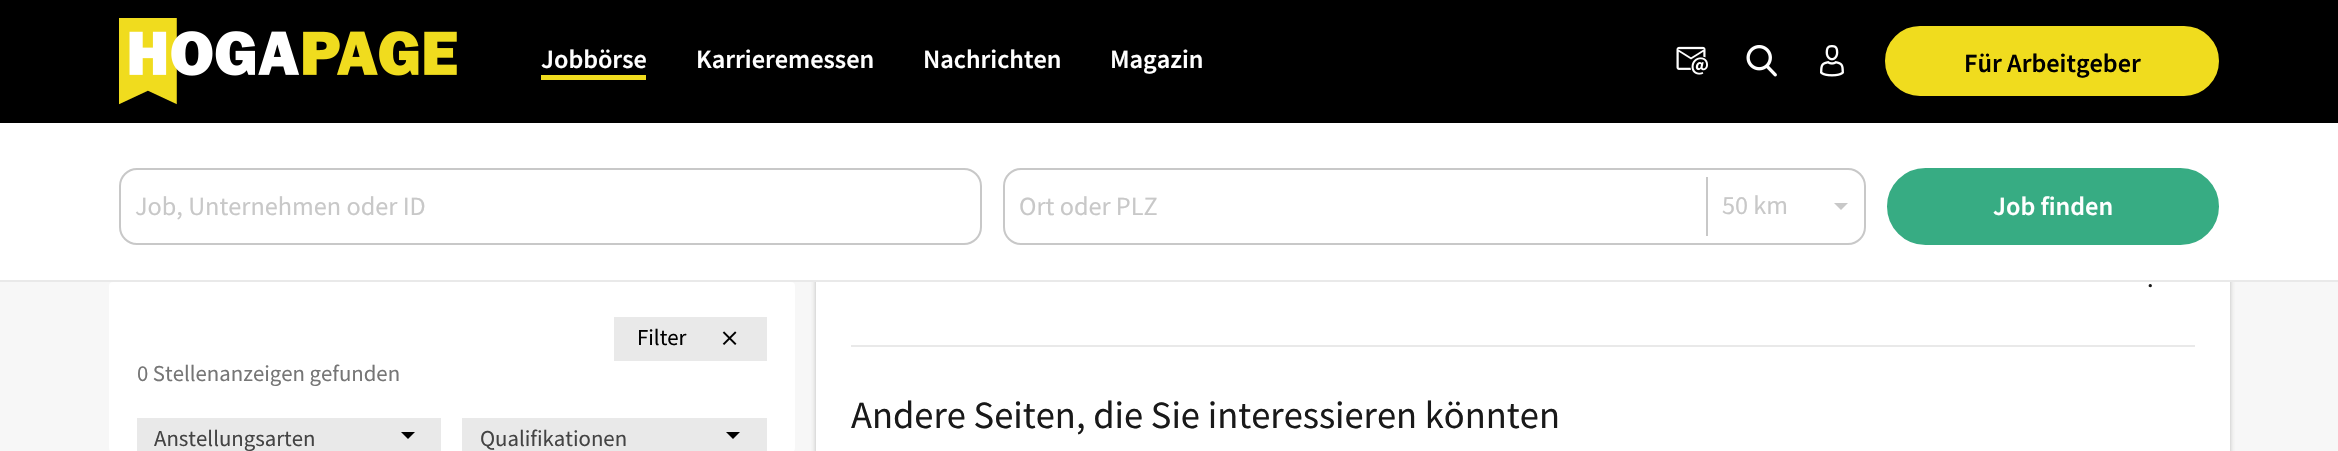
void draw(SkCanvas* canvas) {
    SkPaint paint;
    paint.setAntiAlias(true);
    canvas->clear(0xFFF7F7F7);
    paint.setColor(0x4D2C2B23);
    paint.setMaskFilter(SkMaskFilter::MakeBlur(kNormal_SkBlurStyle, 2.5f));
    canvas->drawRect(SkRect::MakeXYWH(816, 119, 1414, 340), paint);
    paint.setMaskFilter(nullptr);
    paint.setColor(0xFFFFFFFF);
    canvas->drawRect(SkRect::MakeXYWH(0, 123, 2338, 157), paint);
    paint.setColor(0xFF000000);
    canvas->drawRect(SkRect::MakeXYWH(0, 0, 2338, 123), paint);
    canvas->drawImageRect(SkImages::DeferredFromEncodedData(SkData::MakeFromFileName("img1.png")), SkRect::MakeXYWH(119, 18, 338, 87), SkSamplingOptions());
    paint.setColor(0xFFF0DC1E);
    canvas->drawRect(SkRect::MakeXYWH(541, 75, 105, 5), paint);
    SkFont font1(fontMgr->matchFamilyStyle("Source Sans Pro", SkFontStyle(600, SkFontStyle::kNormal_Width, SkFontStyle::kUpright_Slant)), 26.25f);
    font1.setSubpixel(true);
    paint.setColor(0xFFFFFFFF);
    canvas->drawString("Jobbörse", 541, 68, font1, paint);
    canvas->drawString("Karrieremessen", 696, 68, font1, paint);
    canvas->drawString("Nachrichten", 923, 68, font1, paint);
    canvas->drawString("Magazin", 1110, 68, font1, paint);
    canvas->drawImageRect(SkImages::DeferredFromEncodedData(SkData::MakeFromFileName("img2.png")), SkRect::MakeXYWH(1676, 46, 32, 29), SkSamplingOptions());
    canvas->drawImageRect(SkImages::DeferredFromEncodedData(SkData::MakeFromFileName("img3.png")), SkRect::MakeXYWH(1746, 45, 31, 32), SkSamplingOptions());
    canvas->drawImageRect(SkImages::DeferredFromEncodedData(SkData::MakeFromFileName("img4.png")), SkRect::MakeXYWH(1820, 45, 24, 32), SkSamplingOptions());
    paint.setColor(0xFFF0DC1E);
    canvas->drawRoundRect(SkRect::MakeXYWH(1886, 27, 332, 68), 34, 34, paint);
    paint.setStyle(SkPaint::kStroke_Style);
    paint.setStrokeWidth(2);
    canvas->drawRoundRect(SkRect::MakeXYWH(1886, 27, 332, 68), 34, 34, paint);
    paint.setStyle(SkPaint::kFill_Style);
    paint.setColor(0xFF000000);
    canvas->drawString("Für Arbeitgeber", 1964, 72, font1, paint);
    paint.setColor(0xFFE9E9E9);
    canvas->drawRect(SkRect::MakeXYWH(0, 280, 2338, 2), paint);
    paint.setStyle(SkPaint::kStroke_Style);
    paint.setColor(0xFFC8C8C8);
    canvas->drawRoundRect(SkRect::MakeXYWH(120, 169, 861, 75), 17, 17, paint);
    SkFont font2(fontMgr->matchFamilyStyle("Source Sans Pro", SkFontStyle::Normal()), 26.25f);
    font2.setSubpixel(true);
    paint.setStyle(SkPaint::kFill_Style);
    canvas->drawString("Job, Unternehmen oder ID", 135, 215, font2, paint);
    paint.setStyle(SkPaint::kStroke_Style);
    canvas->drawRoundRect(SkRect::MakeXYWH(1004, 169, 861, 75), 17, 17, paint);
    paint.setStyle(SkPaint::kFill_Style);
    canvas->drawString("Ort oder PLZ", 1019, 215, font2, paint);
    canvas->drawRect(SkRect::MakeXYWH(1706, 177, 2, 59), paint);
    canvas->drawString("50 km", 1722, 214, font2, paint);
    canvas->drawPath(SkPathBuilder().moveTo(1834, 203).lineTo(1848, 203).lineTo(1841, 210).close().detach(), paint);
    paint.setColor(0xFF37AC83);
    canvas->drawRoundRect(SkRect::MakeXYWH(1888, 169, 330, 75), 37.5f, 37.5f, paint);
    paint.setStyle(SkPaint::kStroke_Style);
    canvas->drawRoundRect(SkRect::MakeXYWH(1888, 169, 330, 75), 37.5f, 37.5f, paint);
    paint.setStyle(SkPaint::kFill_Style);
    paint.setColor(0xFFFFFFFF);
    canvas->drawString("Job finden", 1993, 215, font1, paint);
    canvas->drawRoundRect(SkRect::MakeXYWH(109, 282, 686, 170), 4, 4, paint);
    paint.setColor(0xFFE9E9E9);
    canvas->drawRect(SkRect::MakeXYWH(614, 317, 153, 44), paint);
    SkFont font3(fontMgr->matchFamilyStyle("Source Sans Pro", SkFontStyle::Normal()), 22.75f);
    font3.setSubpixel(true);
    paint.setColor(0xFF000000);
    canvas->drawString("Filter", 637, 345, font3, paint);
    canvas->drawImageRect(SkImages::DeferredFromEncodedData(SkData::MakeFromFileName("img5.png")), SkRect::MakeXYWH(722, 331, 15, 14), SkSamplingOptions());
    paint.setColor(0xFF767676);
    canvas->drawString("0 Stellenanzeigen gefunden", 137, 381, font3, paint);
    paint.setColor(0xFFE9E9E9);
    canvas->drawRect(SkRect::MakeXYWH(137, 418, 304, 33), paint);
    paint.setColor(0xFF444444);
    canvas->drawString("Anstellungsarten", 154, 446, font3, paint);
    paint.setColor(0xFF000000);
    canvas->drawPath(SkPathBuilder().moveTo(401, 432).lineTo(415, 432).lineTo(408, 439).close().detach(), paint);
    paint.setColor(0xFFE9E9E9);
    canvas->drawRect(SkRect::MakeXYWH(462, 418, 305, 33), paint);
    paint.setColor(0xFF444444);
    canvas->drawString("Qualifikationen", 480, 446, font3, paint);
    paint.setColor(0xFF000000);
    canvas->drawPath(SkPathBuilder().moveTo(726, 432).lineTo(740, 432).lineTo(733, 439).close().detach(), paint);
    paint.setColor(0xFFFFFFFF);
    canvas->drawRect(SkRect::MakeXYWH(816, 282, 1414, 169), paint);
    paint.setColor(0xFF191919);
    canvas->drawString(".", 2147, 287, font2, paint);
    paint.setColor(0xFFE9E9E9);
    canvas->drawRect(SkRect::MakeXYWH(851, 345, 1344, 2), paint);
    SkFont font4(fontMgr->matchFamilyStyle("Source Sans Pro", SkFontStyle::Normal()), 38.5f);
    font4.setSubpixel(true);
    paint.setColor(0xFF191919);
    canvas->drawString("Andere Seiten, die Sie interessieren könnten", 851, 428, font4, paint);
}
